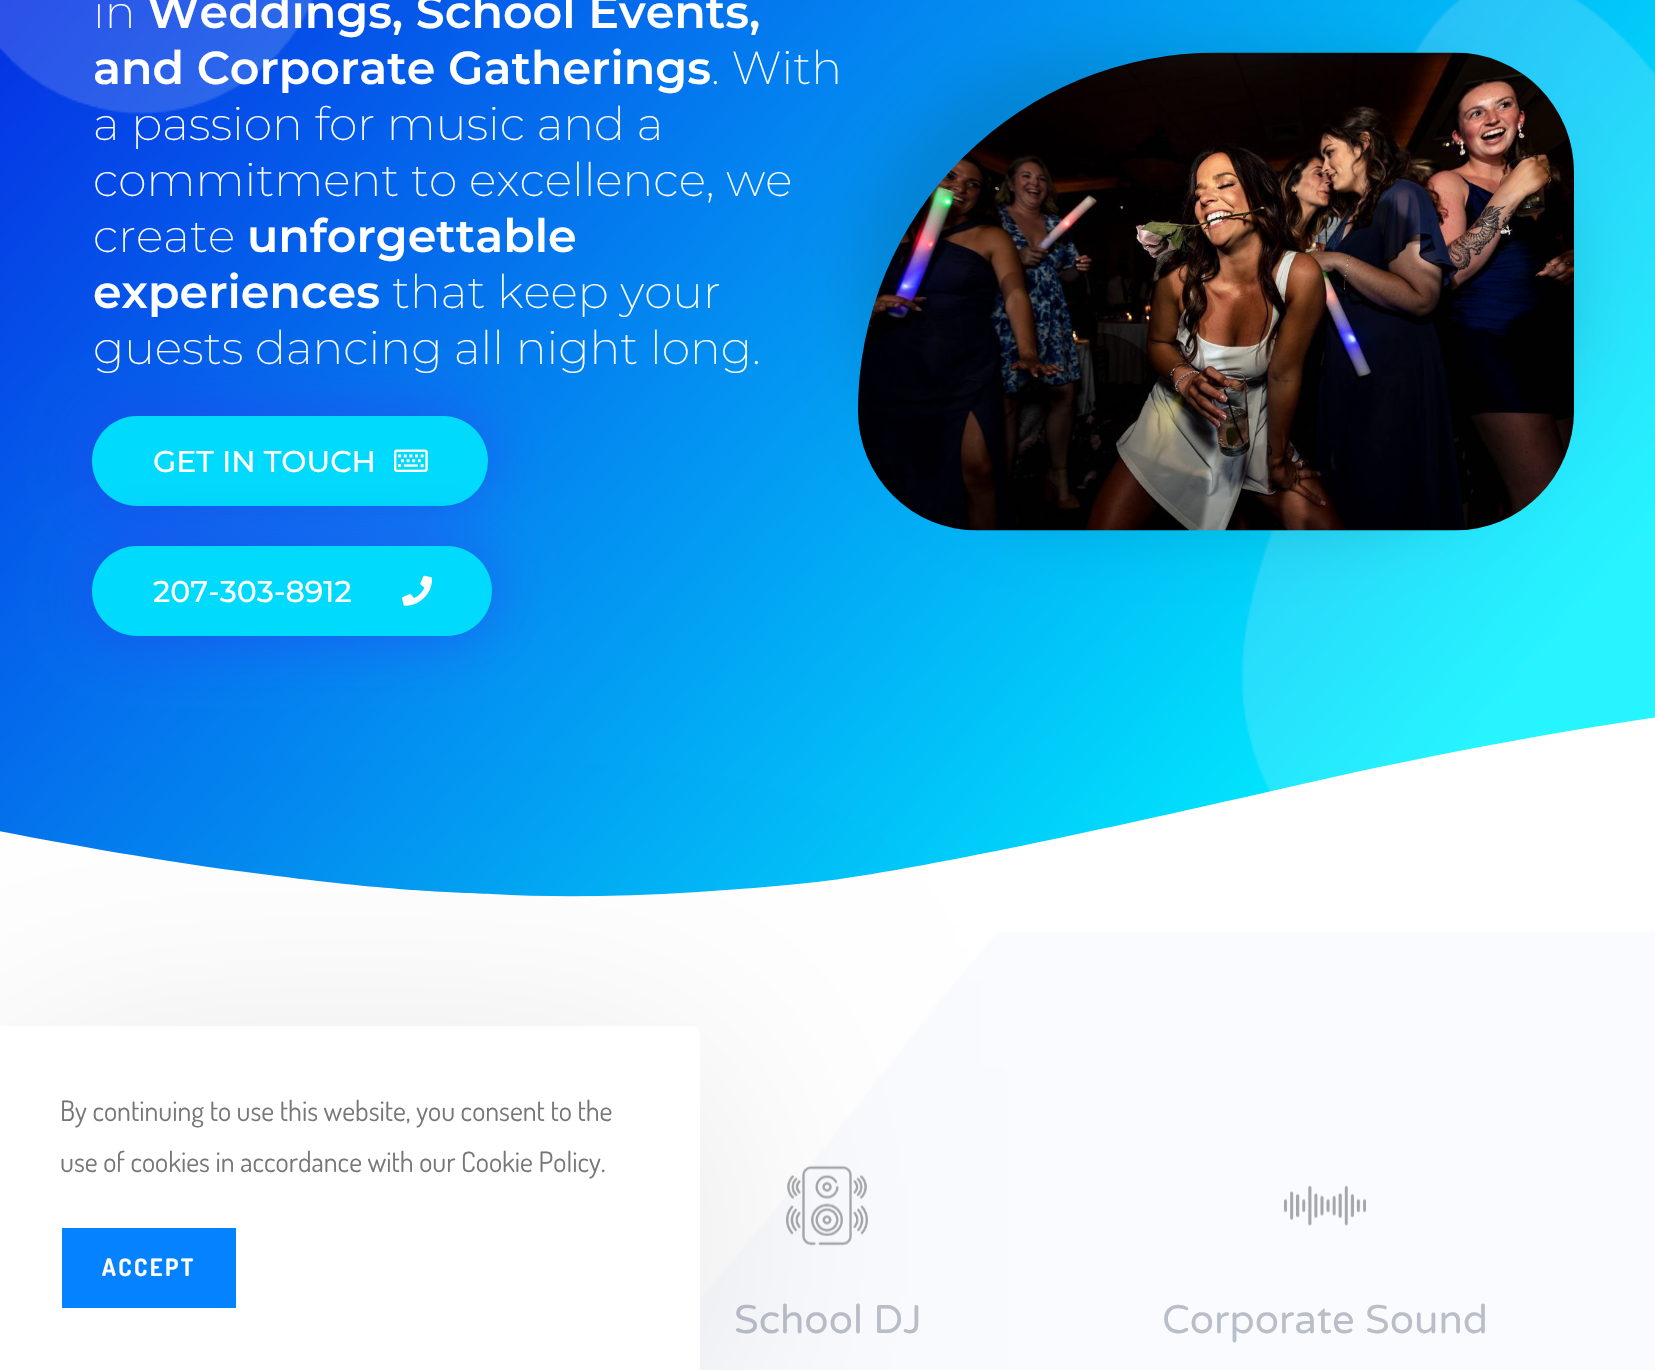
void draw(SkCanvas* canvas) {
    SkPaint paint;
    paint.setAntiAlias(true);
    auto spacedText = [&](const char* s, float x, float y, const SkFont& font, const SkPaint& ink, float letter, float word) {
        std::vector<SkGlyphID> glyphs(font.countText(s, strlen(s), SkTextEncoding::kUTF8));
        std::vector<float> xs(glyphs.size());
        font.textToGlyphs(s, strlen(s), SkTextEncoding::kUTF8, glyphs);
        font.getXPos(glyphs, xs, x);
        float extra = 0;
        for (size_t i = 0; i < glyphs.size(); i++) {
            xs[i] += extra;
            extra += letter + word * (glyphs[i] == font.unicharToGlyph(' '));
        }
        canvas->drawTextBlob(SkTextBlob::MakeFromPosHGlyphs(glyphs, xs, y, font), 0, 0, ink);
    };
    canvas->clear(0xFFFFFFFF);
    {
        const SkColor colors[] = {0xFF0700DD, 0xFF00F2FF};
        const float stops[] = {0, 0.89f};
        const SkPoint ends[] = {{-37, -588}, {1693, 864}};
        paint.setShader(SkGradientShader::MakeLinear(ends, colors, stops, 2, SkTileMode::kClamp));
        paint.setAlpha(255);
    }
    canvas->drawRect(SkRect::MakeXYWH(0, 0, 1655, 897), paint);
    canvas->drawImageRect(SkImages::DeferredFromEncodedData(SkData::MakeFromFileName("img1.png")), SkRect::MakeXYWH(0, 0, 1655, 792), SkSamplingOptions());
    SkFont font1(fontMgr->matchFamilyStyle("Montserrat", SkFontStyle(200, SkFontStyle::kNormal_Width, SkFontStyle::kUpright_Slant)), 46);
    font1.setSubpixel(true);
    paint.setShader(nullptr);
    paint.setColor(0xFFFFFFFF);
    canvas->drawString("in", 93, 28, font1, paint);
    SkFont font2(fontMgr->matchFamilyStyle("Montserrat", SkFontStyle(600, SkFontStyle::kNormal_Width, SkFontStyle::kUpright_Slant)), 46);
    font2.setSubpixel(true);
    canvas->drawString("Weddings, School Events,", 147, 28, font2, paint);
    canvas->drawString("and Corporate Gatherings", 93, 84, font2, paint);
    canvas->drawString(". With", 711, 84, font1, paint);
    canvas->drawString("a passion for music and a", 93, 140, font1, paint);
    canvas->drawString("commitment to excellence, we", 93, 196, font1, paint);
    canvas->drawString("create", 93, 252, font1, paint);
    canvas->drawString("unforgettable", 247, 252, font2, paint);
    canvas->drawString("experiences", 93, 308, font2, paint);
    canvas->drawString("that keep your", 392, 308, font1, paint);
    canvas->drawString("guests dancing all night long.", 93, 364, font1, paint);
    paint.setColor(0x803538F0);
    paint.setMaskFilter(SkMaskFilter::MakeBlur(kNormal_SkBlurStyle, 30));
    canvas->drawRoundRect(SkRect::MakeXYWH(92, 416, 396, 90), 45, 45, paint);
    paint.setMaskFilter(nullptr);
    paint.setColor(0xFF00DAFC);
    canvas->drawRoundRect(SkRect::MakeXYWH(92, 416, 396, 90), 45, 45, paint);
    SkFont font3(fontMgr->matchFamilyStyle("Montserrat", SkFontStyle(500, SkFontStyle::kNormal_Width, SkFontStyle::kUpright_Slant)), 30);
    font3.setSubpixel(true);
    paint.setColor(0xFFFFFFFF);
    canvas->drawString("GET IN TOUCH", 153, 472, font3, paint);
    canvas->drawImageRect(SkImages::DeferredFromEncodedData(SkData::MakeFromFileName("img2.png")), SkRect::MakeXYWH(394, 449, 34, 23), SkSamplingOptions());
    canvas->drawPath(SkPathBuilder().moveTo(492, 894).cubicTo(589, 900, 713, 893, 817, 882).cubicTo(918, 870, 1122, 825, 1250, 796).cubicTo(1576, 719, 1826, 689, 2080, 677).cubicTo(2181, 672, 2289, 668, 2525, 683).cubicTo(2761, 697, 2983, 744, 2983, 744).lineTo(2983, 910).lineTo(-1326, 910).lineTo(-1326, 837).cubicTo(-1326, 837, -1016, 759, -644, 764).cubicTo(-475, 766, -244, 780, -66, 818).cubicTo(25, 837, 159, 862, 277, 876).cubicTo(394, 891, 447, 892, 492, 894).close().detach(), paint);
    paint.setColor(0x803538F0);
    paint.setMaskFilter(SkMaskFilter::MakeBlur(kNormal_SkBlurStyle, 30));
    canvas->drawRoundRect(SkRect::MakeXYWH(92, 546, 400, 90), 45, 45, paint);
    paint.setMaskFilter(nullptr);
    paint.setColor(0xFF00DAFC);
    canvas->drawRoundRect(SkRect::MakeXYWH(92, 546, 400, 90), 45, 45, paint);
    paint.setColor(0xFFFFFFFF);
    canvas->drawString("207-303-8912", 153, 602, font3, paint);
    canvas->drawImageRect(SkImages::DeferredFromEncodedData(SkData::MakeFromFileName("img3.png")), SkRect::MakeXYWH(402, 575, 31, 31), SkSamplingOptions());
    paint.setColor(0x1F000000);
    paint.setMaskFilter(SkMaskFilter::MakeBlur(kNormal_SkBlurStyle, 30));
    canvas->drawRoundRect(SkRect::MakeXYWH(858, 52, 716, 478), 358, 358, paint);
    paint.setMaskFilter(nullptr);
    canvas->drawImageRect(SkImages::DeferredFromEncodedData(SkData::MakeFromFileName("img4.png")), SkRect::MakeXYWH(858, 52, 716, 479), SkSamplingOptions());
    canvas->drawImageRect(SkImages::DeferredFromEncodedData(SkData::MakeFromFileName("img5.png")), SkRect::MakeXYWH(700, 932, 955, 438), SkSamplingOptions());
    canvas->drawImageRect(SkImages::DeferredFromEncodedData(SkData::MakeFromFileName("img6.png")), SkRect::MakeXYWH(786, 1165, 82, 81), SkSamplingOptions());
    SkFont font4(fontMgr->matchFamilyStyle("Varela Round", SkFontStyle::Normal()), 40);
    font4.setSubpixel(true);
    paint.setColor(0xFFBABEC8);
    canvas->drawString("School DJ", 734, 1333, font4, paint);
    canvas->drawImageRect(SkImages::DeferredFromEncodedData(SkData::MakeFromFileName("img7.png")), SkRect::MakeXYWH(1284, 1185, 82, 41), SkSamplingOptions());
    canvas->drawString("Corporate Sound", 1162, 1333, font4, paint);
    paint.setColor(0x1A000000);
    paint.setMaskFilter(SkMaskFilter::MakeBlur(kNormal_SkBlurStyle, 150));
    canvas->drawRoundRect(SkRect::MakeXYWH(0, 1066, 700, 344), 8, 8, paint);
    paint.setMaskFilter(nullptr);
    paint.setColor(0xFFFFFFFF);
    canvas->drawPath(SkPathBuilder().moveTo(0, 1026).lineTo(692, 1026).cubicTo(696.5f, 1026, 700, 1029.5f, 700, 1034).lineTo(700, 1370).lineTo(0, 1370).close().detach(), paint);
    SkFont font5(fontMgr->matchFamilyStyle("Dosis", SkFontStyle::Normal()), 28);
    font5.setSubpixel(true);
    paint.setColor(0xFF777777);
    canvas->drawString("By continuing to use this website, you consent to the", 60, 1121, font5, paint);
    canvas->drawString("use of cookies in accordance with our Cookie Policy.", 60, 1172, font5, paint);
    paint.setColor(0xFF0582FF);
    canvas->drawRect(SkRect::MakeXYWH(62, 1228, 174, 80), paint);
    SkFont font6(fontMgr->matchFamilyStyle("Dosis", SkFontStyle::Bold()), 24);
    font6.setSubpixel(true);
    paint.setColor(0xFFFFFFFF);
    spacedText("ACCEPT", 102, 1276, font6, paint, 2.5f, 0);
}
